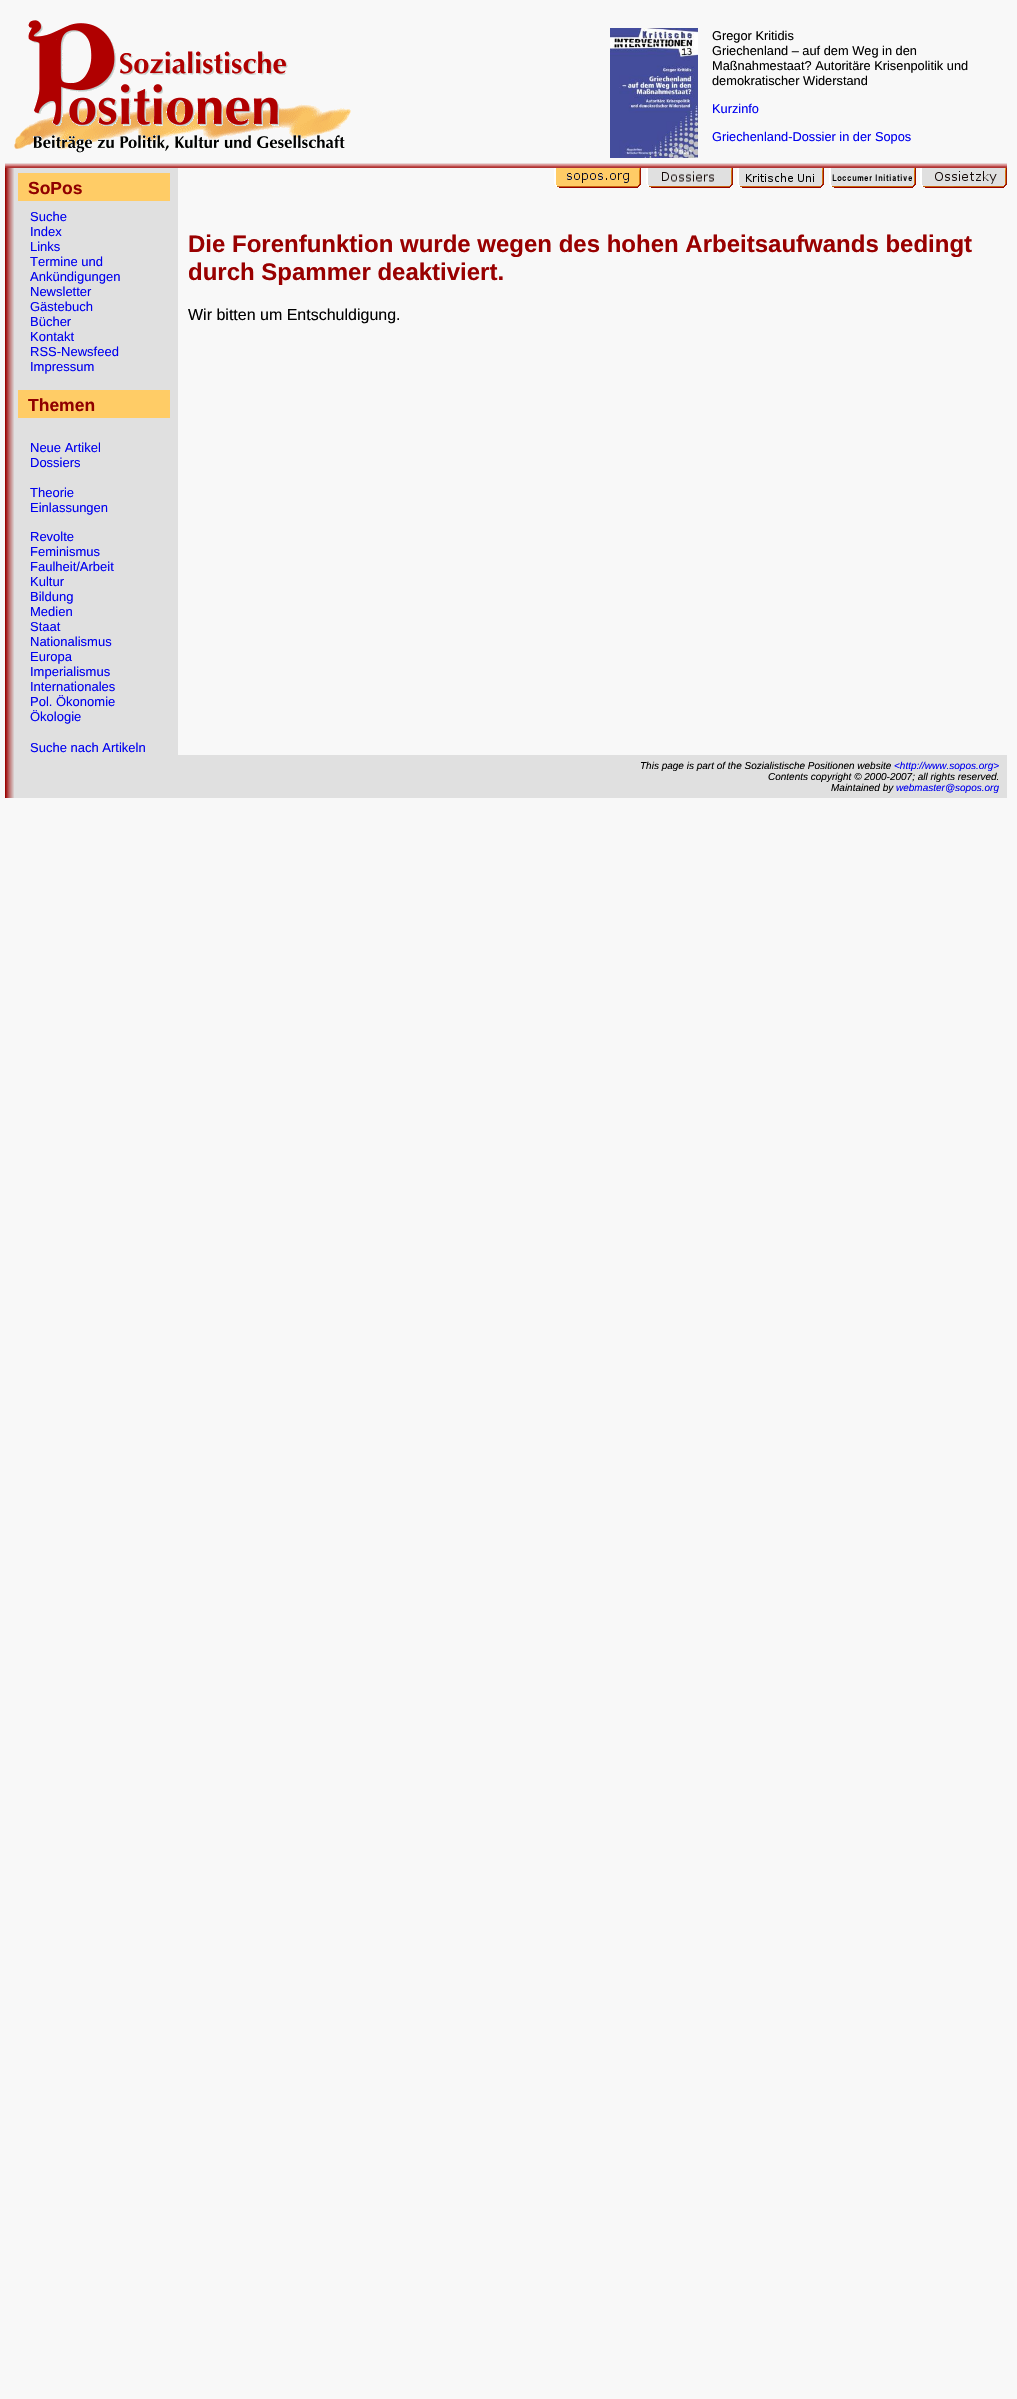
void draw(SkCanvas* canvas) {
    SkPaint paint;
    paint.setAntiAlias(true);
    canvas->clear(0xFFF8F8F8);
    canvas->drawImageRect(SkImages::DeferredFromEncodedData(SkData::MakeFromFileName("img1.png")), SkRect::MakeXYWH(14, 20, 337, 133), SkSamplingOptions());
    canvas->drawImageRect(SkImages::DeferredFromEncodedData(SkData::MakeFromFileName("img2.png")), SkRect::MakeXYWH(610, 28, 88, 130), SkSamplingOptions());
    SkFont font1(fontMgr->matchFamilyStyle("Liberation Sans", SkFontStyle::Normal()), 12.8f);
    font1.setSubpixel(true);
    paint.setColor(0xFF000000);
    canvas->drawString("Gregor Kritidis", 712, 40, font1, paint);
    canvas->drawString("Griechenland – auf dem Weg in den", 712, 55, font1, paint);
    canvas->drawString("Maßnahmestaat? Autoritäre Krisenpolitik und", 712, 70, font1, paint);
    canvas->drawString("demokratischer Widerstand", 712, 85, font1, paint);
    paint.setColor(0xFF0000EF);
    canvas->drawString("Kurzinfo", 712, 113, font1, paint);
    canvas->drawString("Griechenland-Dossier in der Sopos", 712, 141, font1, paint);
    canvas->drawImageRect(SkImages::DeferredFromEncodedData(SkData::MakeFromFileName("img3.png")), SkRect::MakeXYWH(5, 163, 1002, 5), SkSamplingOptions());
    paint.setColor(0xFFE0E0E0);
    canvas->drawRect(SkRect::MakeXYWH(14, 168, 164, 587), paint);
    canvas->drawImageRect(SkImages::DeferredFromEncodedData(SkData::MakeFromFileName("img4.png")), SkRect::MakeXYWH(5, 168, 9, 587), SkSamplingOptions());
    paint.setColor(0xFFFFCC66);
    canvas->drawRect(SkRect::MakeXYWH(18, 173, 152, 28), paint);
    SkFont font2(fontMgr->matchFamilyStyle("Liberation Sans", SkFontStyle::Bold()), 17.5f);
    font2.setSubpixel(true);
    paint.setColor(0xFF900000);
    canvas->drawString("SoPos", 28, 194, font2, paint);
    SkFont font3(fontMgr->matchFamilyStyle("Liberation Sans", SkFontStyle::Normal()), 13);
    font3.setSubpixel(true);
    paint.setColor(0xFF0000EF);
    canvas->drawString("Suche", 30, 221, font3, paint);
    canvas->drawString("Index", 30, 236, font3, paint);
    canvas->drawString("Links", 30, 251, font3, paint);
    canvas->drawString("Termine und", 30, 266, font3, paint);
    canvas->drawString("Ankündigungen", 30, 281, font3, paint);
    canvas->drawString("Newsletter", 30, 296, font3, paint);
    canvas->drawString("Gästebuch", 30, 311, font3, paint);
    canvas->drawString("Bücher", 30, 326, font3, paint);
    canvas->drawString("Kontakt", 30, 341, font3, paint);
    canvas->drawString("RSS-Newsfeed", 30, 356, font3, paint);
    canvas->drawString("Impressum", 30, 371, font3, paint);
    paint.setColor(0xFFFFCC66);
    canvas->drawRect(SkRect::MakeXYWH(18, 390, 152, 28), paint);
    paint.setColor(0xFF900000);
    canvas->drawString("Themen", 28, 411, font2, paint);
    paint.setColor(0xFF0000EF);
    canvas->drawString("Neue Artikel", 30, 452, font3, paint);
    canvas->drawString("Dossiers", 30, 467, font3, paint);
    canvas->drawString("Theorie", 30, 497, font3, paint);
    canvas->drawString("Einlassungen", 30, 512, font3, paint);
    canvas->drawString("Revolte", 30, 541, font3, paint);
    canvas->drawString("Feminismus", 30, 556, font3, paint);
    canvas->drawString("Faulheit/Arbeit", 30, 571, font3, paint);
    canvas->drawString("Kultur", 30, 586, font3, paint);
    canvas->drawString("Bildung", 30, 601, font3, paint);
    canvas->drawString("Medien", 30, 616, font3, paint);
    canvas->drawString("Staat", 30, 631, font3, paint);
    canvas->drawString("Nationalismus", 30, 646, font3, paint);
    canvas->drawString("Europa", 30, 661, font3, paint);
    canvas->drawString("Imperialismus", 30, 676, font3, paint);
    canvas->drawString("Internationales", 30, 691, font3, paint);
    canvas->drawString("Pol. Ökonomie", 30, 706, font3, paint);
    canvas->drawString("Ökologie", 30, 721, font3, paint);
    canvas->drawString("Suche nach Artikeln", 30, 752, font3, paint);
    canvas->drawImageRect(SkImages::DeferredFromEncodedData(SkData::MakeFromFileName("img5.png")), SkRect::MakeXYWH(554, 168, 87, 20), SkSamplingOptions());
    canvas->drawImageRect(SkImages::DeferredFromEncodedData(SkData::MakeFromFileName("img6.png")), SkRect::MakeXYWH(646, 168, 87, 20), SkSamplingOptions());
    canvas->drawImageRect(SkImages::DeferredFromEncodedData(SkData::MakeFromFileName("img7.png")), SkRect::MakeXYWH(737, 168, 87, 20), SkSamplingOptions());
    canvas->drawImageRect(SkImages::DeferredFromEncodedData(SkData::MakeFromFileName("img8.png")), SkRect::MakeXYWH(829, 168, 87, 20), SkSamplingOptions());
    canvas->drawImageRect(SkImages::DeferredFromEncodedData(SkData::MakeFromFileName("img9.png")), SkRect::MakeXYWH(920, 168, 87, 20), SkSamplingOptions());
    SkFont font4(fontMgr->matchFamilyStyle("Liberation Sans", SkFontStyle::Bold()), 24);
    font4.setSubpixel(true);
    paint.setColor(0xFF990000);
    canvas->drawString("Die Forenfunktion wurde wegen des hohen Arbeitsaufwands bedingt", 188, 252, font4, paint);
    canvas->drawString("durch Spammer deaktiviert.", 188, 280, font4, paint);
    SkFont font5(fontMgr->matchFamilyStyle("Liberation Sans", SkFontStyle::Normal()), 16);
    font5.setSubpixel(true);
    paint.setColor(0xFF000000);
    canvas->drawString("Wir bitten um Entschuldigung.", 188, 320, font5, paint);
    paint.setColor(0xFFE0E0E0);
    canvas->drawRect(SkRect::MakeXYWH(14, 755, 993, 43), paint);
    canvas->drawImageRect(SkImages::DeferredFromEncodedData(SkData::MakeFromFileName("img10.png")), SkRect::MakeXYWH(5, 755, 9, 43), SkSamplingOptions());
    SkFont font6(fontMgr->matchFamilyStyle("Liberation Sans", SkFontStyle::Italic()), 10);
    font6.setSubpixel(true);
    paint.setColor(0xFF000000);
    canvas->drawString("This page is part of the Sozialistische Positionen website", 640, 769, font6, paint);
    paint.setColor(0xFF0000EF);
    canvas->drawString("<http://www.sopos.org>", 894, 769, font6, paint);
    paint.setColor(0xFF000000);
    canvas->drawString("Contents copyright © 2000-2007; all rights reserved.", 768, 780, font6, paint);
    canvas->drawString("Maintained by", 831, 791, font6, paint);
    paint.setColor(0xFF0000EF);
    canvas->drawString("webmaster@sopos.org", 896, 791, font6, paint);
}
